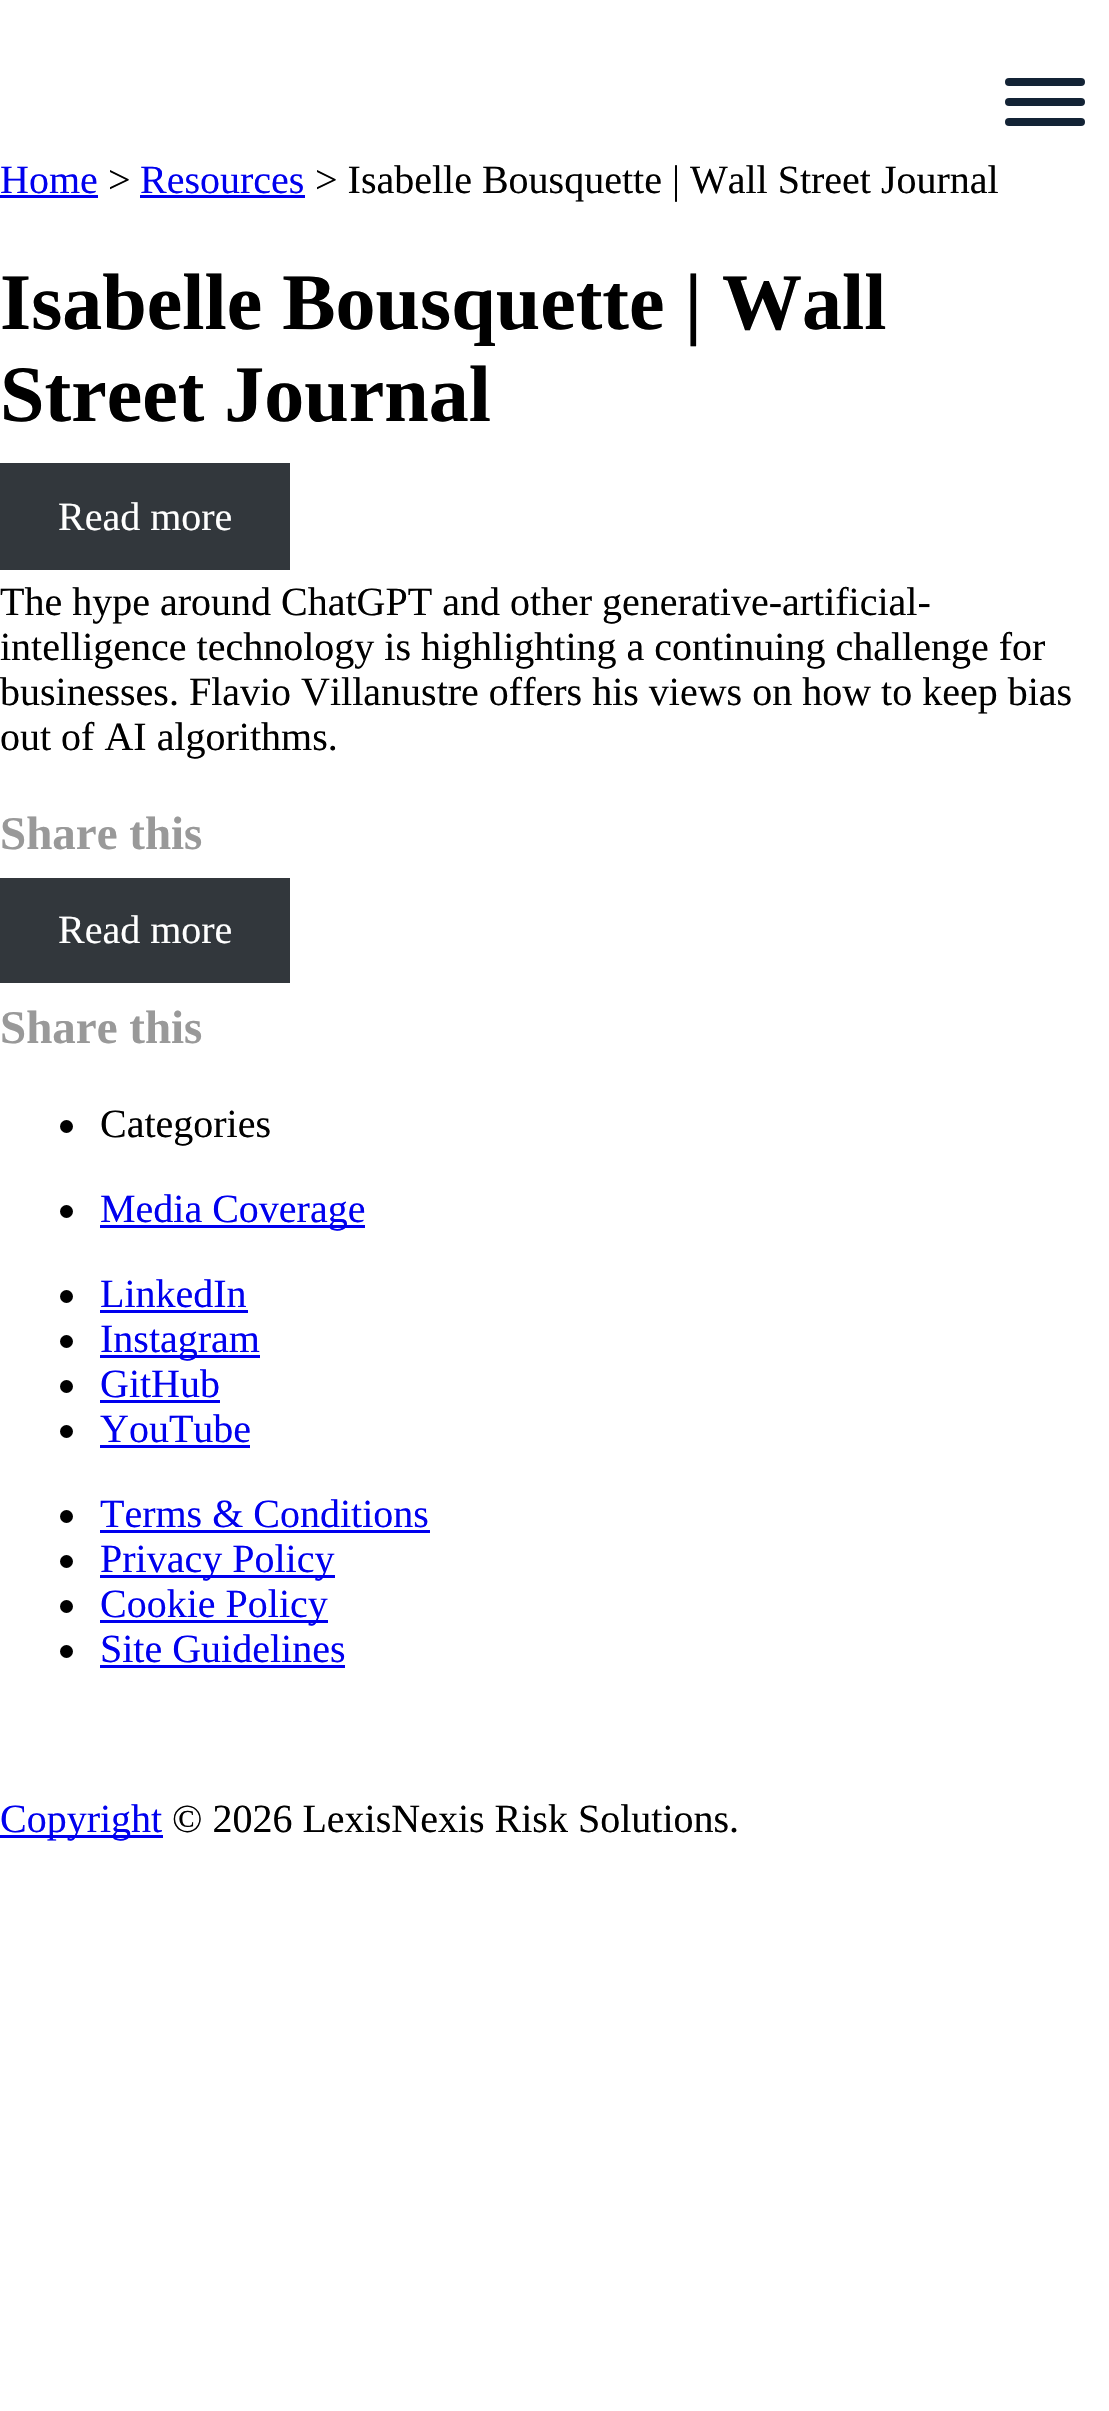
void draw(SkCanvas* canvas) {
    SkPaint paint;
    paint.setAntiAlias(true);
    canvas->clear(0xFFFFFFFF);
    paint.setColor(0xFF132335);
    canvas->drawRoundRect(SkRect::MakeXYWH(1005, 78, 80, 8), 4, 4, paint);
    canvas->drawRoundRect(SkRect::MakeXYWH(1005, 98, 80, 8), 4, 4, paint);
    canvas->drawRoundRect(SkRect::MakeXYWH(1005, 118, 80, 8), 4, 4, paint);
    SkFont font1(fontMgr->matchFamilyStyle("Liberation Serif", SkFontStyle::Normal()), 40);
    font1.setSubpixel(true);
    paint.setColor(0xFF0000EE);
    canvas->drawString("Home", 0, 193, font1, paint);
    canvas->drawRect(SkRect::MakeXYWH(0, 195, 98, 3), paint);
    paint.setColor(0xFF000000);
    canvas->drawString(">", 108, 193, font1, paint);
    paint.setColor(0xFF0000EE);
    canvas->drawString("Resources", 140, 193, font1, paint);
    canvas->drawRect(SkRect::MakeXYWH(140, 195, 165, 3), paint);
    paint.setColor(0xFF000000);
    canvas->drawString("> Isabelle Bousquette | Wall Street Journal", 315, 193, font1, paint);
    SkFont font2(fontMgr->matchFamilyStyle("Liberation Serif", SkFontStyle::Bold()), 80);
    font2.setSubpixel(true);
    canvas->drawString("Isabelle Bousquette | Wall", 0, 329, font2, paint);
    canvas->drawString("Street Journal", 0, 421, font2, paint);
    paint.setColor(0xFF32373C);
    canvas->drawRect(SkRect::MakeXYWH(0, 463, 290, 107), paint);
    paint.setColor(0xFFFFFFFF);
    canvas->drawString("Read more", 58, 530, font1, paint);
    paint.setColor(0xFF000000);
    canvas->drawString("The hype around ChatGPT and other generative-artificial-", 0, 615, font1, paint);
    canvas->drawString("intelligence technology is highlighting a continuing challenge for", 0, 660, font1, paint);
    canvas->drawString("businesses. Flavio Villanustre offers his views on how to keep bias", 0, 705, font1, paint);
    canvas->drawString("out of AI algorithms.", 0, 750, font1, paint);
    SkFont font3(fontMgr->matchFamilyStyle("Liberation Serif", SkFontStyle::Bold()), 47);
    font3.setSubpixel(true);
    paint.setColor(0xFF999999);
    canvas->drawString("Share this", 0, 849, font3, paint);
    paint.setColor(0xFF32373C);
    canvas->drawRect(SkRect::MakeXYWH(0, 878, 290, 105), paint);
    paint.setColor(0xFFFFFFFF);
    canvas->drawString("Read more", 58, 943, font1, paint);
    paint.setColor(0xFF999999);
    canvas->drawString("Share this", 0, 1043, font3, paint);
    paint.setColor(0xFF000000);
    canvas->drawCircle(66.5f, 1126.5f, 6.5f, paint);
    canvas->drawString("Categories", 100, 1137, font1, paint);
    canvas->drawCircle(66.5f, 1211.5f, 6.5f, paint);
    paint.setColor(0xFF0000EE);
    canvas->drawRect(SkRect::MakeXYWH(100, 1225, 265, 3), paint);
    canvas->drawString("Media Coverage", 100, 1222, font1, paint);
    paint.setColor(0xFF000000);
    canvas->drawCircle(66.5f, 1296.5f, 6.5f, paint);
    paint.setColor(0xFF0000EE);
    canvas->drawString("LinkedIn", 100, 1307, font1, paint);
    canvas->drawRect(SkRect::MakeXYWH(100, 1310, 148, 3), paint);
    paint.setColor(0xFF000000);
    canvas->drawCircle(66.5f, 1341.5f, 6.5f, paint);
    paint.setColor(0xFF0000EE);
    canvas->drawRect(SkRect::MakeXYWH(100, 1355, 160, 3), paint);
    canvas->drawString("Instagram", 100, 1352, font1, paint);
    paint.setColor(0xFF000000);
    canvas->drawCircle(66.5f, 1386.5f, 6.5f, paint);
    paint.setColor(0xFF0000EE);
    canvas->drawString("GitHub", 100, 1397, font1, paint);
    canvas->drawRect(SkRect::MakeXYWH(100, 1400, 120, 3), paint);
    paint.setColor(0xFF000000);
    canvas->drawCircle(66.5f, 1431.5f, 6.5f, paint);
    paint.setColor(0xFF0000EE);
    canvas->drawString("YouTube", 100, 1442, font1, paint);
    canvas->drawRect(SkRect::MakeXYWH(100, 1445, 150, 3), paint);
    paint.setColor(0xFF000000);
    canvas->drawCircle(66.5f, 1516.5f, 6.5f, paint);
    paint.setColor(0xFF0000EE);
    canvas->drawString("Terms & Conditions", 100, 1527, font1, paint);
    canvas->drawRect(SkRect::MakeXYWH(100, 1530, 330, 3), paint);
    paint.setColor(0xFF000000);
    canvas->drawCircle(66.5f, 1561.5f, 6.5f, paint);
    paint.setColor(0xFF0000EE);
    canvas->drawRect(SkRect::MakeXYWH(100, 1575, 235, 3), paint);
    canvas->drawString("Privacy Policy", 100, 1572, font1, paint);
    paint.setColor(0xFF000000);
    canvas->drawCircle(66.5f, 1606.5f, 6.5f, paint);
    paint.setColor(0xFF0000EE);
    canvas->drawRect(SkRect::MakeXYWH(100, 1620, 228, 3), paint);
    canvas->drawString("Cookie Policy", 100, 1617, font1, paint);
    paint.setColor(0xFF000000);
    canvas->drawCircle(66.5f, 1651.5f, 6.5f, paint);
    paint.setColor(0xFF0000EE);
    canvas->drawString("Site Guidelines", 100, 1662, font1, paint);
    canvas->drawRect(SkRect::MakeXYWH(100, 1665, 245, 3), paint);
    canvas->drawRect(SkRect::MakeXYWH(0, 1835, 163, 3), paint);
    canvas->drawString("Copyright", 0, 1832, font1, paint);
    paint.setColor(0xFF000000);
    canvas->drawString("© 2026 LexisNexis Risk Solutions.", 172, 1832, font1, paint);
}
